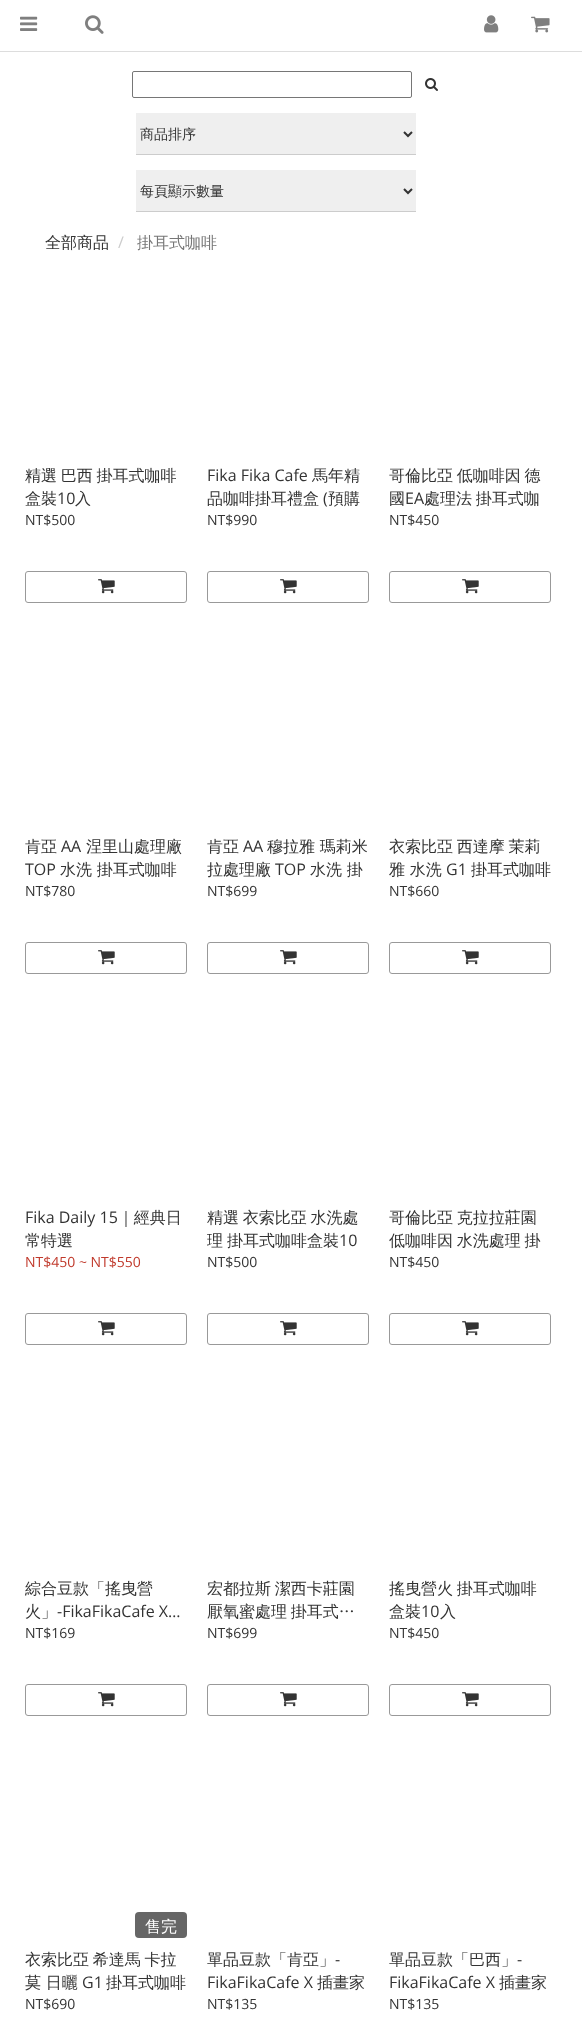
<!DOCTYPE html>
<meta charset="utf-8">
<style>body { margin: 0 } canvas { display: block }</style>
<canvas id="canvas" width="582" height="2044"></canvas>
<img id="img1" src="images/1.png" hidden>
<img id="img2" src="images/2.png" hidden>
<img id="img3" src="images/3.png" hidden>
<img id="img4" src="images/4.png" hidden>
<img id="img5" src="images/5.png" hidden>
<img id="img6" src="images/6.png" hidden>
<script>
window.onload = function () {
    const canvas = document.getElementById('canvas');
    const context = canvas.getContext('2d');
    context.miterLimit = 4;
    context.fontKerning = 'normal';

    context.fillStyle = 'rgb(255, 255, 255)';
    context.fillRect(0, 0, 582, 2044);
    context.fillStyle = 'rgb(221, 221, 221)';
    context.fillRect(0, 51, 582, 1);
    context.drawImage(document.getElementById('img1'), 20, 16, 18, 15);
    context.drawImage(document.getElementById('img2'), 85, 15, 19, 19);
    context.drawImage(document.getElementById('img3'), 484, 15, 15, 18);
    context.drawImage(document.getElementById('img4'), 531, 16, 19, 17);
    context.beginPath();
    context.roundRect(132.5, 71.5, 279, 26, 1.5);
    context.strokeStyle = 'rgb(118, 118, 118)';
    context.stroke();
    context.drawImage(document.getElementById('img5'), 425, 78, 13, 13);
    context.fillStyle = 'rgb(239, 239, 239)';
    context.fillRect(136, 113, 280, 41);
    context.fillStyle = 'rgb(204, 204, 204)';
    context.fillRect(136, 154, 280, 1);
    context.beginPath();
    context.moveTo(404, 132);
    context.lineTo(408, 136);
    context.lineTo(412, 132);
    context.strokeStyle = 'rgb(51, 51, 51)';
    context.lineWidth = 2;
    context.stroke();
    context.fillStyle = 'rgb(239, 239, 239)';
    context.fillRect(136, 170, 280, 41);
    context.fillStyle = 'rgb(204, 204, 204)';
    context.fillRect(136, 211, 280, 1);
    context.beginPath();
    context.moveTo(404, 189);
    context.lineTo(408, 193);
    context.lineTo(412, 189);
    context.stroke();
    context.beginPath();
    context.roundRect(25.5, 571.5, 161, 31, 2.5);
    context.strokeStyle = 'rgb(153, 153, 153)';
    context.lineWidth = 1;
    context.stroke();
    context.drawImage(document.getElementById('img6'), 98, 579, 17, 15);
    context.beginPath();
    context.roundRect(207.5, 571.5, 161, 31, 2.5);
    context.stroke();
    context.drawImage(document.getElementById('img6'), 280, 579, 17, 15);
    context.beginPath();
    context.roundRect(389.5, 571.5, 161, 31, 2.5);
    context.stroke();
    context.drawImage(document.getElementById('img6'), 462, 579, 17, 15);
    context.beginPath();
    context.roundRect(25.5, 942.5, 161, 31, 2.5);
    context.stroke();
    context.drawImage(document.getElementById('img6'), 98, 950, 17, 15);
    context.beginPath();
    context.roundRect(207.5, 942.5, 161, 31, 2.5);
    context.stroke();
    context.drawImage(document.getElementById('img6'), 280, 950, 17, 15);
    context.beginPath();
    context.roundRect(389.5, 942.5, 161, 31, 2.5);
    context.stroke();
    context.drawImage(document.getElementById('img6'), 462, 950, 17, 15);
    context.beginPath();
    context.roundRect(25.5, 1313.5, 161, 31, 2.5);
    context.stroke();
    context.drawImage(document.getElementById('img6'), 98, 1321, 17, 15);
    context.beginPath();
    context.roundRect(207.5, 1313.5, 161, 31, 2.5);
    context.stroke();
    context.drawImage(document.getElementById('img6'), 280, 1321, 17, 15);
    context.beginPath();
    context.roundRect(389.5, 1313.5, 161, 31, 2.5);
    context.stroke();
    context.drawImage(document.getElementById('img6'), 462, 1321, 17, 15);
    context.beginPath();
    context.roundRect(25.5, 1684.5, 161, 31, 2.5);
    context.stroke();
    context.drawImage(document.getElementById('img6'), 98, 1692, 17, 15);
    context.beginPath();
    context.roundRect(207.5, 1684.5, 161, 31, 2.5);
    context.stroke();
    context.drawImage(document.getElementById('img6'), 280, 1692, 17, 15);
    context.beginPath();
    context.roundRect(389.5, 1684.5, 161, 31, 2.5);
    context.stroke();
    context.drawImage(document.getElementById('img6'), 462, 1692, 17, 15);
    context.fillStyle = 'rgb(102, 102, 102)';
    context.beginPath();
    context.roundRect(135, 1912, 52, 26, 4);
    context.fill();
    context.font = '500 14px WenQuanYi Zen Hei';
    context.fillStyle = 'rgb(51, 51, 51)';
    context.fillText('商品排序', 140, 139);
    context.fillText('每頁顯示數量', 140, 196);
    context.font = '500 16px WenQuanYi Zen Hei';
    context.fillText('全部商品', 45, 248);
    context.font = '16px Open Sans';
    context.fillStyle = 'rgb(204, 204, 204)';
    context.fillText('/', 118, 248);
    context.font = '500 16px WenQuanYi Zen Hei';
    context.fillStyle = 'rgb(119, 119, 119)';
    context.fillText('掛耳式咖啡', 137, 248);
    context.wordSpacing = '-1px';
    context.fillStyle = 'rgb(51, 51, 51)';
    context.fillText('精選 巴西 掛耳式咖啡', 25, 481);
    context.wordSpacing = '0px';
    context.fillText('盒裝', 25, 504);
    context.font = '16px Open Sans';
    context.fillText('10', 57, 504);
    context.font = '500 16px WenQuanYi Zen Hei';
    context.fillText('入', 75, 504);
    context.font = '14px Open Sans';
    context.fillText('NT$500', 25, 525);
    context.font = '16px Open Sans';
    context.fillText('Fika Fika Cafe', 207, 481);
    context.font = '500 16px WenQuanYi Zen Hei';
    context.fillText('馬年精', 312, 481);
    context.fillText('品咖啡掛耳禮盒', 207, 504);
    context.font = '16px Open Sans';
    context.fillText('(', 323, 504);
    context.font = '500 16px WenQuanYi Zen Hei';
    context.fillText('預購', 328, 504);
    context.font = '14px Open Sans';
    context.fillText('NT$990', 207, 525);
    context.wordSpacing = '-1px';
    context.font = '500 16px WenQuanYi Zen Hei';
    context.fillText('哥倫比亞 低咖啡因 德', 389, 481);
    context.wordSpacing = '0px';
    context.fillText('國', 389, 504);
    context.font = '16px Open Sans';
    context.fillText('EA', 405, 504);
    context.wordSpacing = '-1px';
    context.font = '500 16px WenQuanYi Zen Hei';
    context.fillText('處理法 掛耳式咖', 424, 504);
    context.wordSpacing = '0px';
    context.font = '14px Open Sans';
    context.fillText('NT$450', 389, 525);
    context.font = '500 16px WenQuanYi Zen Hei';
    context.fillText('肯亞', 25, 852);
    context.font = '16px Open Sans';
    context.fillText('AA', 61, 852);
    context.font = '500 16px WenQuanYi Zen Hei';
    context.fillText('涅里山處理廠', 86, 852);
    context.font = '16px Open Sans';
    context.fillText('TOP', 25, 875);
    context.font = '500 16px WenQuanYi Zen Hei';
    context.fillText('水洗 掛耳式咖啡', 60, 875);
    context.font = '14px Open Sans';
    context.fillText('NT$780', 25, 896);
    context.font = '500 16px WenQuanYi Zen Hei';
    context.fillText('肯亞', 207, 852);
    context.font = '16px Open Sans';
    context.fillText('AA', 243, 852);
    context.font = '500 16px WenQuanYi Zen Hei';
    context.fillText('穆拉雅 瑪莉米', 267, 852);
    context.fillText('拉處理廠', 207, 875);
    context.font = '16px Open Sans';
    context.fillText('TOP', 275, 875);
    context.font = '500 16px WenQuanYi Zen Hei';
    context.fillText('水洗 掛', 310, 875);
    context.font = '14px Open Sans';
    context.fillText('NT$699', 207, 896);
    context.wordSpacing = '-1px';
    context.font = '500 16px WenQuanYi Zen Hei';
    context.fillText('衣索比亞 西達摩 茉莉', 389, 852);
    context.wordSpacing = '0px';
    context.fillText('雅 水洗', 389, 875);
    context.font = '16px Open Sans';
    context.fillText('G1', 446, 875);
    context.font = '500 16px WenQuanYi Zen Hei';
    context.fillText('掛耳式咖啡', 471, 875);
    context.font = '14px Open Sans';
    context.fillText('NT$660', 389, 896);
    context.font = '16px Open Sans';
    context.fillText('Fika Daily 15', 25, 1223);
    context.font = '500 16px WenQuanYi Zen Hei';
    context.fillText('｜經典日', 118, 1223);
    context.fillText('常特選', 25, 1246);
    context.font = '14px Open Sans';
    context.fillStyle = 'rgb(192, 57, 43)';
    context.fillText('NT$450 ~ NT$550', 25, 1267);
    context.wordSpacing = '-1px';
    context.font = '500 16px WenQuanYi Zen Hei';
    context.fillStyle = 'rgb(51, 51, 51)';
    context.fillText('精選 衣索比亞 水洗處', 207, 1223);
    context.wordSpacing = '0px';
    context.fillText('理', 207, 1246);
    context.fillText('掛耳式咖啡盒裝', 227, 1246);
    context.font = '16px Open Sans';
    context.fillText('10', 339, 1246);
    context.font = '14px Open Sans';
    context.fillText('NT$500', 207, 1267);
    context.wordSpacing = '-1px';
    context.font = '500 16px WenQuanYi Zen Hei';
    context.fillText('哥倫比亞 克拉拉莊園', 389, 1223);
    context.fillText('低咖啡因 水洗處理 掛', 389, 1246);
    context.wordSpacing = '0px';
    context.font = '14px Open Sans';
    context.fillText('NT$450', 389, 1267);
    context.font = '500 16px WenQuanYi Zen Hei';
    context.fillText('綜合豆款「搖曳營', 25, 1594);
    context.fillText('火」', 25, 1617);
    context.font = '16px Open Sans';
    context.fillText('-FikaFikaCafe X…', 57, 1617);
    context.font = '14px Open Sans';
    context.fillText('NT$169', 25, 1638);
    context.wordSpacing = '-1px';
    context.font = '500 16px WenQuanYi Zen Hei';
    context.fillText('宏都拉斯 潔西卡莊園', 207, 1594);
    context.fillText('厭氧蜜處理 掛耳式…', 207, 1617);
    context.wordSpacing = '0px';
    context.font = '14px Open Sans';
    context.fillText('NT$699', 207, 1638);
    context.wordSpacing = '-1px';
    context.font = '500 16px WenQuanYi Zen Hei';
    context.fillText('搖曳營火 掛耳式咖啡', 389, 1594);
    context.wordSpacing = '0px';
    context.fillText('盒裝', 389, 1617);
    context.font = '16px Open Sans';
    context.fillText('10', 421, 1617);
    context.font = '500 16px WenQuanYi Zen Hei';
    context.fillText('入', 440, 1617);
    context.font = '14px Open Sans';
    context.fillText('NT$450', 389, 1638);
    context.font = '500 16px WenQuanYi Zen Hei';
    context.fillStyle = 'rgb(255, 255, 255)';
    context.fillText('售完', 145, 1932);
    context.wordSpacing = '-1px';
    context.fillStyle = 'rgb(51, 51, 51)';
    context.fillText('衣索比亞 希達馬 卡拉', 25, 1965);
    context.wordSpacing = '0px';
    context.fillText('莫 日曬', 25, 1988);
    context.font = '16px Open Sans';
    context.fillText('G1', 82, 1988);
    context.font = '500 16px WenQuanYi Zen Hei';
    context.fillText('掛耳式咖啡', 106, 1988);
    context.font = '14px Open Sans';
    context.fillText('NT$690', 25, 2009);
    context.font = '500 16px WenQuanYi Zen Hei';
    context.fillText('單品豆款「肯亞」', 207, 1965);
    context.font = '16px Open Sans';
    context.fillText('-', 335, 1965);
    context.fillText('FikaFikaCafe X', 207, 1988);
    context.font = '500 16px WenQuanYi Zen Hei';
    context.fillText('插畫家', 317, 1988);
    context.font = '14px Open Sans';
    context.fillText('NT$135', 207, 2009);
    context.font = '500 16px WenQuanYi Zen Hei';
    context.fillText('單品豆款「巴西」', 389, 1965);
    context.font = '16px Open Sans';
    context.fillText('-', 517, 1965);
    context.fillText('FikaFikaCafe X', 389, 1988);
    context.font = '500 16px WenQuanYi Zen Hei';
    context.fillText('插畫家', 499, 1988);
    context.font = '14px Open Sans';
    context.fillText('NT$135', 389, 2009);
};
</script>
